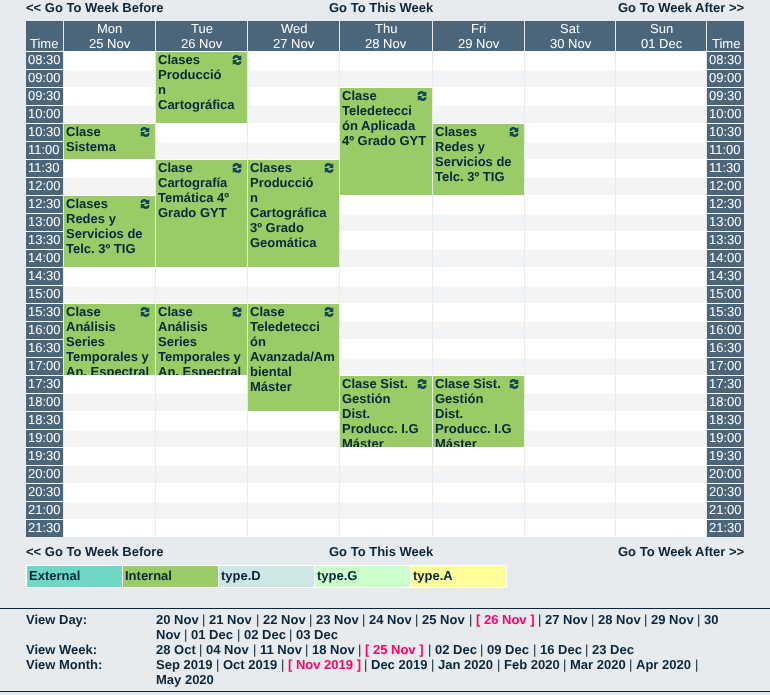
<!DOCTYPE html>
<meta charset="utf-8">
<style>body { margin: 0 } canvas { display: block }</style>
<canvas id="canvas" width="770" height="695"></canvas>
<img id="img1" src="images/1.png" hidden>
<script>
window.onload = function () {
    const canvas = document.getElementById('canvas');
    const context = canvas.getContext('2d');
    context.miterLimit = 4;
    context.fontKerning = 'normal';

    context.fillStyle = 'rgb(231, 235, 238)';
    context.fillRect(0, 0, 770, 695);
    context.fillStyle = 'rgb(75, 102, 123)';
    context.fillRect(26, 21, 37, 30);
    context.fillRect(64, 21, 91, 30);
    context.fillRect(156, 21, 91, 30);
    context.fillRect(248, 21, 91, 30);
    context.fillRect(340, 21, 92, 30);
    context.fillRect(433, 21, 91, 30);
    context.fillRect(525, 21, 90, 30);
    context.fillRect(616, 21, 90, 30);
    context.fillRect(707, 21, 37, 30);
    context.fillRect(26, 52, 37, 17);
    context.fillStyle = 'rgb(255, 255, 255)';
    context.fillRect(26, 51, 37, 1);
    context.fillRect(64, 51, 91, 18);
    context.fillStyle = 'rgb(153, 204, 102)';
    context.fillRect(156, 52, 91, 71);
    context.fillStyle = 'rgb(255, 255, 255)';
    context.fillRect(155, 51, 92, 1);
    context.fillStyle = 'rgb(231, 235, 238)';
    context.fillRect(155, 51, 1, 1);
    context.drawImage(document.getElementById('img1'), 232, 55, 10, 10);
    context.fillStyle = 'rgb(255, 255, 255)';
    context.fillRect(248, 51, 91, 18);
    context.fillRect(340, 51, 92, 18);
    context.fillRect(433, 51, 91, 18);
    context.fillRect(525, 51, 90, 18);
    context.fillRect(616, 51, 90, 18);
    context.fillStyle = 'rgb(75, 102, 123)';
    context.fillRect(707, 52, 37, 17);
    context.fillStyle = 'rgb(255, 255, 255)';
    context.fillRect(706, 51, 38, 1);
    context.fillStyle = 'rgb(231, 235, 238)';
    context.fillRect(706, 51, 1, 1);
    context.fillStyle = 'rgb(242, 244, 246)';
    context.fillRect(64, 70, 91, 17);
    context.fillStyle = 'rgb(255, 255, 255)';
    context.fillRect(26, 69, 129, 1);
    context.fillStyle = 'rgb(231, 235, 238)';
    context.fillRect(63, 69, 1, 1);
    context.fillStyle = 'rgb(242, 244, 246)';
    context.fillRect(248, 70, 91, 17);
    context.fillStyle = 'rgb(255, 255, 255)';
    context.fillRect(247, 69, 497, 1);
    context.fillStyle = 'rgb(231, 235, 238)';
    context.fillRect(247, 69, 1, 1);
    context.fillStyle = 'rgb(75, 102, 123)';
    context.fillRect(26, 70, 37, 17);
    context.fillStyle = 'rgb(242, 244, 246)';
    context.fillRect(340, 70, 92, 17);
    context.fillStyle = 'rgb(231, 235, 238)';
    context.fillRect(339, 69, 1, 1);
    context.fillStyle = 'rgb(242, 244, 246)';
    context.fillRect(433, 70, 91, 17);
    context.fillStyle = 'rgb(231, 235, 238)';
    context.fillRect(432, 69, 1, 1);
    context.fillStyle = 'rgb(242, 244, 246)';
    context.fillRect(525, 70, 90, 17);
    context.fillStyle = 'rgb(231, 235, 238)';
    context.fillRect(524, 69, 1, 1);
    context.fillStyle = 'rgb(242, 244, 246)';
    context.fillRect(616, 70, 90, 17);
    context.fillStyle = 'rgb(231, 235, 238)';
    context.fillRect(615, 69, 1, 1);
    context.fillStyle = 'rgb(75, 102, 123)';
    context.fillRect(707, 70, 37, 17);
    context.fillStyle = 'rgb(231, 235, 238)';
    context.fillRect(706, 69, 1, 1);
    context.fillStyle = 'rgb(75, 102, 123)';
    context.fillRect(26, 88, 37, 17);
    context.fillStyle = 'rgb(255, 255, 255)';
    context.fillRect(26, 87, 37, 1);
    context.fillRect(64, 87, 91, 18);
    context.fillRect(248, 87, 91, 18);
    context.fillStyle = 'rgb(153, 204, 102)';
    context.fillRect(340, 88, 92, 107);
    context.fillStyle = 'rgb(255, 255, 255)';
    context.fillRect(339, 87, 93, 1);
    context.fillStyle = 'rgb(231, 235, 238)';
    context.fillRect(339, 87, 1, 1);
    context.drawImage(document.getElementById('img1'), 417, 91, 10, 10);
    context.fillStyle = 'rgb(255, 255, 255)';
    context.fillRect(433, 87, 91, 18);
    context.fillRect(525, 87, 90, 18);
    context.fillRect(616, 87, 90, 18);
    context.fillStyle = 'rgb(75, 102, 123)';
    context.fillRect(707, 88, 37, 17);
    context.fillStyle = 'rgb(255, 255, 255)';
    context.fillRect(706, 87, 38, 1);
    context.fillStyle = 'rgb(231, 235, 238)';
    context.fillRect(706, 87, 1, 1);
    context.fillStyle = 'rgb(242, 244, 246)';
    context.fillRect(64, 106, 91, 17);
    context.fillStyle = 'rgb(255, 255, 255)';
    context.fillRect(26, 105, 129, 1);
    context.fillStyle = 'rgb(231, 235, 238)';
    context.fillRect(63, 105, 1, 1);
    context.fillStyle = 'rgb(242, 244, 246)';
    context.fillRect(248, 106, 91, 17);
    context.fillStyle = 'rgb(255, 255, 255)';
    context.fillRect(247, 105, 92, 1);
    context.fillStyle = 'rgb(231, 235, 238)';
    context.fillRect(247, 105, 1, 1);
    context.fillStyle = 'rgb(242, 244, 246)';
    context.fillRect(433, 106, 91, 17);
    context.fillStyle = 'rgb(255, 255, 255)';
    context.fillRect(432, 105, 312, 1);
    context.fillStyle = 'rgb(231, 235, 238)';
    context.fillRect(432, 105, 1, 1);
    context.fillStyle = 'rgb(75, 102, 123)';
    context.fillRect(26, 106, 37, 17);
    context.fillStyle = 'rgb(242, 244, 246)';
    context.fillRect(525, 106, 90, 17);
    context.fillStyle = 'rgb(231, 235, 238)';
    context.fillRect(524, 105, 1, 1);
    context.fillStyle = 'rgb(242, 244, 246)';
    context.fillRect(616, 106, 90, 17);
    context.fillStyle = 'rgb(231, 235, 238)';
    context.fillRect(615, 105, 1, 1);
    context.fillStyle = 'rgb(75, 102, 123)';
    context.fillRect(707, 106, 37, 17);
    context.fillStyle = 'rgb(231, 235, 238)';
    context.fillRect(706, 105, 1, 1);
    context.fillStyle = 'rgb(75, 102, 123)';
    context.fillRect(26, 124, 37, 17);
    context.fillStyle = 'rgb(255, 255, 255)';
    context.fillRect(26, 123, 129, 1);
    context.fillStyle = 'rgb(153, 204, 102)';
    context.fillRect(64, 124, 91, 35);
    context.fillStyle = 'rgb(231, 235, 238)';
    context.fillRect(63, 123, 1, 1);
    context.drawImage(document.getElementById('img1'), 140, 127, 10, 10);
    context.fillStyle = 'rgb(255, 255, 255)';
    context.fillRect(156, 123, 91, 18);
    context.fillRect(248, 123, 91, 18);
    context.fillStyle = 'rgb(153, 204, 102)';
    context.fillRect(433, 124, 91, 71);
    context.fillStyle = 'rgb(255, 255, 255)';
    context.fillRect(432, 123, 92, 1);
    context.fillStyle = 'rgb(231, 235, 238)';
    context.fillRect(432, 123, 1, 1);
    context.drawImage(document.getElementById('img1'), 509, 127, 10, 10);
    context.fillStyle = 'rgb(255, 255, 255)';
    context.fillRect(525, 123, 90, 18);
    context.fillRect(616, 123, 90, 18);
    context.fillStyle = 'rgb(75, 102, 123)';
    context.fillRect(707, 124, 37, 17);
    context.fillStyle = 'rgb(255, 255, 255)';
    context.fillRect(706, 123, 38, 1);
    context.fillStyle = 'rgb(231, 235, 238)';
    context.fillRect(706, 123, 1, 1);
    context.fillStyle = 'rgb(242, 244, 246)';
    context.fillRect(156, 142, 91, 17);
    context.fillStyle = 'rgb(255, 255, 255)';
    context.fillRect(155, 141, 184, 1);
    context.fillStyle = 'rgb(231, 235, 238)';
    context.fillRect(155, 141, 1, 1);
    context.fillStyle = 'rgb(242, 244, 246)';
    context.fillRect(248, 142, 91, 17);
    context.fillStyle = 'rgb(231, 235, 238)';
    context.fillRect(247, 141, 1, 1);
    context.fillStyle = 'rgb(242, 244, 246)';
    context.fillRect(525, 142, 90, 17);
    context.fillStyle = 'rgb(255, 255, 255)';
    context.fillRect(524, 141, 220, 1);
    context.fillStyle = 'rgb(231, 235, 238)';
    context.fillRect(524, 141, 1, 1);
    context.fillStyle = 'rgb(75, 102, 123)';
    context.fillRect(26, 142, 37, 17);
    context.fillStyle = 'rgb(255, 255, 255)';
    context.fillRect(26, 141, 37, 1);
    context.fillStyle = 'rgb(242, 244, 246)';
    context.fillRect(616, 142, 90, 17);
    context.fillStyle = 'rgb(231, 235, 238)';
    context.fillRect(615, 141, 1, 1);
    context.fillStyle = 'rgb(75, 102, 123)';
    context.fillRect(707, 142, 37, 17);
    context.fillStyle = 'rgb(231, 235, 238)';
    context.fillRect(706, 141, 1, 1);
    context.fillStyle = 'rgb(75, 102, 123)';
    context.fillRect(26, 160, 37, 17);
    context.fillStyle = 'rgb(255, 255, 255)';
    context.fillRect(26, 159, 37, 1);
    context.fillRect(64, 159, 91, 18);
    context.fillStyle = 'rgb(153, 204, 102)';
    context.fillRect(156, 160, 91, 107);
    context.fillStyle = 'rgb(255, 255, 255)';
    context.fillRect(155, 159, 184, 1);
    context.fillStyle = 'rgb(231, 235, 238)';
    context.fillRect(155, 159, 1, 1);
    context.drawImage(document.getElementById('img1'), 232, 163, 10, 10);
    context.fillStyle = 'rgb(153, 204, 102)';
    context.fillRect(248, 160, 91, 107);
    context.fillStyle = 'rgb(231, 235, 238)';
    context.fillRect(247, 159, 1, 1);
    context.drawImage(document.getElementById('img1'), 324, 163, 10, 10);
    context.fillStyle = 'rgb(255, 255, 255)';
    context.fillRect(525, 159, 90, 18);
    context.fillRect(616, 159, 90, 18);
    context.fillStyle = 'rgb(75, 102, 123)';
    context.fillRect(707, 160, 37, 17);
    context.fillStyle = 'rgb(255, 255, 255)';
    context.fillRect(706, 159, 38, 1);
    context.fillStyle = 'rgb(231, 235, 238)';
    context.fillRect(706, 159, 1, 1);
    context.fillStyle = 'rgb(242, 244, 246)';
    context.fillRect(64, 178, 91, 17);
    context.fillStyle = 'rgb(255, 255, 255)';
    context.fillRect(26, 177, 129, 1);
    context.fillStyle = 'rgb(231, 235, 238)';
    context.fillRect(63, 177, 1, 1);
    context.fillStyle = 'rgb(242, 244, 246)';
    context.fillRect(525, 178, 90, 17);
    context.fillStyle = 'rgb(255, 255, 255)';
    context.fillRect(524, 177, 220, 1);
    context.fillStyle = 'rgb(231, 235, 238)';
    context.fillRect(524, 177, 1, 1);
    context.fillStyle = 'rgb(75, 102, 123)';
    context.fillRect(26, 178, 37, 17);
    context.fillStyle = 'rgb(242, 244, 246)';
    context.fillRect(616, 178, 90, 17);
    context.fillStyle = 'rgb(231, 235, 238)';
    context.fillRect(615, 177, 1, 1);
    context.fillStyle = 'rgb(75, 102, 123)';
    context.fillRect(707, 178, 37, 17);
    context.fillStyle = 'rgb(231, 235, 238)';
    context.fillRect(706, 177, 1, 1);
    context.fillStyle = 'rgb(75, 102, 123)';
    context.fillRect(26, 196, 37, 17);
    context.fillStyle = 'rgb(255, 255, 255)';
    context.fillRect(26, 195, 129, 1);
    context.fillStyle = 'rgb(153, 204, 102)';
    context.fillRect(64, 196, 91, 71);
    context.fillStyle = 'rgb(231, 235, 238)';
    context.fillRect(63, 195, 1, 1);
    context.drawImage(document.getElementById('img1'), 140, 199, 10, 10);
    context.fillStyle = 'rgb(255, 255, 255)';
    context.fillRect(340, 195, 92, 18);
    context.fillRect(433, 195, 91, 18);
    context.fillRect(525, 195, 90, 18);
    context.fillRect(616, 195, 90, 18);
    context.fillStyle = 'rgb(75, 102, 123)';
    context.fillRect(707, 196, 37, 17);
    context.fillStyle = 'rgb(255, 255, 255)';
    context.fillRect(706, 195, 38, 1);
    context.fillStyle = 'rgb(231, 235, 238)';
    context.fillRect(706, 195, 1, 1);
    context.fillStyle = 'rgb(242, 244, 246)';
    context.fillRect(340, 214, 92, 17);
    context.fillStyle = 'rgb(255, 255, 255)';
    context.fillRect(339, 213, 405, 1);
    context.fillStyle = 'rgb(231, 235, 238)';
    context.fillRect(339, 213, 1, 1);
    context.fillStyle = 'rgb(75, 102, 123)';
    context.fillRect(26, 214, 37, 17);
    context.fillStyle = 'rgb(255, 255, 255)';
    context.fillRect(26, 213, 37, 1);
    context.fillStyle = 'rgb(242, 244, 246)';
    context.fillRect(433, 214, 91, 17);
    context.fillStyle = 'rgb(231, 235, 238)';
    context.fillRect(432, 213, 1, 1);
    context.fillStyle = 'rgb(242, 244, 246)';
    context.fillRect(525, 214, 90, 17);
    context.fillStyle = 'rgb(231, 235, 238)';
    context.fillRect(524, 213, 1, 1);
    context.fillStyle = 'rgb(242, 244, 246)';
    context.fillRect(616, 214, 90, 17);
    context.fillStyle = 'rgb(231, 235, 238)';
    context.fillRect(615, 213, 1, 1);
    context.fillStyle = 'rgb(75, 102, 123)';
    context.fillRect(707, 214, 37, 17);
    context.fillStyle = 'rgb(231, 235, 238)';
    context.fillRect(706, 213, 1, 1);
    context.fillStyle = 'rgb(75, 102, 123)';
    context.fillRect(26, 232, 37, 17);
    context.fillStyle = 'rgb(255, 255, 255)';
    context.fillRect(26, 231, 37, 1);
    context.fillRect(340, 231, 92, 18);
    context.fillRect(433, 231, 91, 18);
    context.fillRect(525, 231, 90, 18);
    context.fillRect(616, 231, 90, 18);
    context.fillStyle = 'rgb(75, 102, 123)';
    context.fillRect(707, 232, 37, 17);
    context.fillStyle = 'rgb(255, 255, 255)';
    context.fillRect(706, 231, 38, 1);
    context.fillStyle = 'rgb(231, 235, 238)';
    context.fillRect(706, 231, 1, 1);
    context.fillStyle = 'rgb(242, 244, 246)';
    context.fillRect(340, 250, 92, 17);
    context.fillStyle = 'rgb(255, 255, 255)';
    context.fillRect(339, 249, 405, 1);
    context.fillStyle = 'rgb(231, 235, 238)';
    context.fillRect(339, 249, 1, 1);
    context.fillStyle = 'rgb(75, 102, 123)';
    context.fillRect(26, 250, 37, 17);
    context.fillStyle = 'rgb(255, 255, 255)';
    context.fillRect(26, 249, 37, 1);
    context.fillStyle = 'rgb(242, 244, 246)';
    context.fillRect(433, 250, 91, 17);
    context.fillStyle = 'rgb(231, 235, 238)';
    context.fillRect(432, 249, 1, 1);
    context.fillStyle = 'rgb(242, 244, 246)';
    context.fillRect(525, 250, 90, 17);
    context.fillStyle = 'rgb(231, 235, 238)';
    context.fillRect(524, 249, 1, 1);
    context.fillStyle = 'rgb(242, 244, 246)';
    context.fillRect(616, 250, 90, 17);
    context.fillStyle = 'rgb(231, 235, 238)';
    context.fillRect(615, 249, 1, 1);
    context.fillStyle = 'rgb(75, 102, 123)';
    context.fillRect(707, 250, 37, 17);
    context.fillStyle = 'rgb(231, 235, 238)';
    context.fillRect(706, 249, 1, 1);
    context.fillStyle = 'rgb(75, 102, 123)';
    context.fillRect(26, 268, 37, 17);
    context.fillStyle = 'rgb(255, 255, 255)';
    context.fillRect(26, 267, 37, 1);
    context.fillRect(64, 267, 91, 18);
    context.fillRect(156, 267, 91, 18);
    context.fillRect(248, 267, 91, 18);
    context.fillRect(340, 267, 92, 18);
    context.fillRect(433, 267, 91, 18);
    context.fillRect(525, 267, 90, 18);
    context.fillRect(616, 267, 90, 18);
    context.fillStyle = 'rgb(75, 102, 123)';
    context.fillRect(707, 268, 37, 17);
    context.fillStyle = 'rgb(255, 255, 255)';
    context.fillRect(706, 267, 38, 1);
    context.fillStyle = 'rgb(231, 235, 238)';
    context.fillRect(706, 267, 1, 1);
    context.fillStyle = 'rgb(75, 102, 123)';
    context.fillRect(26, 286, 37, 17);
    context.fillStyle = 'rgb(255, 255, 255)';
    context.fillRect(26, 285, 718, 1);
    context.fillStyle = 'rgb(242, 244, 246)';
    context.fillRect(64, 286, 91, 17);
    context.fillStyle = 'rgb(231, 235, 238)';
    context.fillRect(63, 285, 1, 1);
    context.fillStyle = 'rgb(242, 244, 246)';
    context.fillRect(156, 286, 91, 17);
    context.fillStyle = 'rgb(231, 235, 238)';
    context.fillRect(155, 285, 1, 1);
    context.fillStyle = 'rgb(242, 244, 246)';
    context.fillRect(248, 286, 91, 17);
    context.fillStyle = 'rgb(231, 235, 238)';
    context.fillRect(247, 285, 1, 1);
    context.fillStyle = 'rgb(242, 244, 246)';
    context.fillRect(340, 286, 92, 17);
    context.fillStyle = 'rgb(231, 235, 238)';
    context.fillRect(339, 285, 1, 1);
    context.fillStyle = 'rgb(242, 244, 246)';
    context.fillRect(433, 286, 91, 17);
    context.fillStyle = 'rgb(231, 235, 238)';
    context.fillRect(432, 285, 1, 1);
    context.fillStyle = 'rgb(242, 244, 246)';
    context.fillRect(525, 286, 90, 17);
    context.fillStyle = 'rgb(231, 235, 238)';
    context.fillRect(524, 285, 1, 1);
    context.fillStyle = 'rgb(242, 244, 246)';
    context.fillRect(616, 286, 90, 17);
    context.fillStyle = 'rgb(231, 235, 238)';
    context.fillRect(615, 285, 1, 1);
    context.fillStyle = 'rgb(75, 102, 123)';
    context.fillRect(707, 286, 37, 17);
    context.fillStyle = 'rgb(231, 235, 238)';
    context.fillRect(706, 285, 1, 1);
    context.fillStyle = 'rgb(75, 102, 123)';
    context.fillRect(26, 304, 37, 17);
    context.fillStyle = 'rgb(255, 255, 255)';
    context.fillRect(26, 303, 313, 1);
    context.fillStyle = 'rgb(153, 204, 102)';
    context.fillRect(64, 304, 91, 71);
    context.fillStyle = 'rgb(231, 235, 238)';
    context.fillRect(63, 303, 1, 1);
    context.drawImage(document.getElementById('img1'), 140, 307, 10, 10);
    context.fillStyle = 'rgb(153, 204, 102)';
    context.fillRect(156, 304, 91, 71);
    context.fillStyle = 'rgb(231, 235, 238)';
    context.fillRect(155, 303, 1, 1);
    context.drawImage(document.getElementById('img1'), 232, 307, 10, 10);
    context.fillStyle = 'rgb(153, 204, 102)';
    context.fillRect(248, 304, 91, 107);
    context.fillStyle = 'rgb(231, 235, 238)';
    context.fillRect(247, 303, 1, 1);
    context.drawImage(document.getElementById('img1'), 324, 307, 10, 10);
    context.fillStyle = 'rgb(255, 255, 255)';
    context.fillRect(340, 303, 92, 18);
    context.fillRect(433, 303, 91, 18);
    context.fillRect(525, 303, 90, 18);
    context.fillRect(616, 303, 90, 18);
    context.fillStyle = 'rgb(75, 102, 123)';
    context.fillRect(707, 304, 37, 17);
    context.fillStyle = 'rgb(255, 255, 255)';
    context.fillRect(706, 303, 38, 1);
    context.fillStyle = 'rgb(231, 235, 238)';
    context.fillRect(706, 303, 1, 1);
    context.fillStyle = 'rgb(242, 244, 246)';
    context.fillRect(340, 322, 92, 17);
    context.fillStyle = 'rgb(255, 255, 255)';
    context.fillRect(339, 321, 405, 1);
    context.fillStyle = 'rgb(231, 235, 238)';
    context.fillRect(339, 321, 1, 1);
    context.fillStyle = 'rgb(75, 102, 123)';
    context.fillRect(26, 322, 37, 17);
    context.fillStyle = 'rgb(255, 255, 255)';
    context.fillRect(26, 321, 37, 1);
    context.fillStyle = 'rgb(242, 244, 246)';
    context.fillRect(433, 322, 91, 17);
    context.fillStyle = 'rgb(231, 235, 238)';
    context.fillRect(432, 321, 1, 1);
    context.fillStyle = 'rgb(242, 244, 246)';
    context.fillRect(525, 322, 90, 17);
    context.fillStyle = 'rgb(231, 235, 238)';
    context.fillRect(524, 321, 1, 1);
    context.fillStyle = 'rgb(242, 244, 246)';
    context.fillRect(616, 322, 90, 17);
    context.fillStyle = 'rgb(231, 235, 238)';
    context.fillRect(615, 321, 1, 1);
    context.fillStyle = 'rgb(75, 102, 123)';
    context.fillRect(707, 322, 37, 17);
    context.fillStyle = 'rgb(231, 235, 238)';
    context.fillRect(706, 321, 1, 1);
    context.fillStyle = 'rgb(75, 102, 123)';
    context.fillRect(26, 340, 37, 17);
    context.fillStyle = 'rgb(255, 255, 255)';
    context.fillRect(26, 339, 37, 1);
    context.fillRect(340, 339, 92, 18);
    context.fillRect(433, 339, 91, 18);
    context.fillRect(525, 339, 90, 18);
    context.fillRect(616, 339, 90, 18);
    context.fillStyle = 'rgb(75, 102, 123)';
    context.fillRect(707, 340, 37, 17);
    context.fillStyle = 'rgb(255, 255, 255)';
    context.fillRect(706, 339, 38, 1);
    context.fillStyle = 'rgb(231, 235, 238)';
    context.fillRect(706, 339, 1, 1);
    context.fillStyle = 'rgb(242, 244, 246)';
    context.fillRect(340, 358, 92, 17);
    context.fillStyle = 'rgb(255, 255, 255)';
    context.fillRect(339, 357, 405, 1);
    context.fillStyle = 'rgb(231, 235, 238)';
    context.fillRect(339, 357, 1, 1);
    context.fillStyle = 'rgb(75, 102, 123)';
    context.fillRect(26, 358, 37, 17);
    context.fillStyle = 'rgb(255, 255, 255)';
    context.fillRect(26, 357, 37, 1);
    context.fillStyle = 'rgb(242, 244, 246)';
    context.fillRect(433, 358, 91, 17);
    context.fillStyle = 'rgb(231, 235, 238)';
    context.fillRect(432, 357, 1, 1);
    context.fillStyle = 'rgb(242, 244, 246)';
    context.fillRect(525, 358, 90, 17);
    context.fillStyle = 'rgb(231, 235, 238)';
    context.fillRect(524, 357, 1, 1);
    context.fillStyle = 'rgb(242, 244, 246)';
    context.fillRect(616, 358, 90, 17);
    context.fillStyle = 'rgb(231, 235, 238)';
    context.fillRect(615, 357, 1, 1);
    context.fillStyle = 'rgb(75, 102, 123)';
    context.fillRect(707, 358, 37, 17);
    context.fillStyle = 'rgb(231, 235, 238)';
    context.fillRect(706, 357, 1, 1);
    context.fillStyle = 'rgb(75, 102, 123)';
    context.fillRect(26, 376, 37, 17);
    context.fillStyle = 'rgb(255, 255, 255)';
    context.fillRect(26, 375, 37, 1);
    context.fillRect(64, 375, 91, 18);
    context.fillRect(156, 375, 91, 18);
    context.fillStyle = 'rgb(153, 204, 102)';
    context.fillRect(340, 376, 92, 71);
    context.fillStyle = 'rgb(255, 255, 255)';
    context.fillRect(339, 375, 185, 1);
    context.fillStyle = 'rgb(231, 235, 238)';
    context.fillRect(339, 375, 1, 1);
    context.drawImage(document.getElementById('img1'), 417, 379, 10, 10);
    context.fillStyle = 'rgb(153, 204, 102)';
    context.fillRect(433, 376, 91, 71);
    context.fillStyle = 'rgb(231, 235, 238)';
    context.fillRect(432, 375, 1, 1);
    context.drawImage(document.getElementById('img1'), 509, 379, 10, 10);
    context.fillStyle = 'rgb(255, 255, 255)';
    context.fillRect(525, 375, 90, 18);
    context.fillRect(616, 375, 90, 18);
    context.fillStyle = 'rgb(75, 102, 123)';
    context.fillRect(707, 376, 37, 17);
    context.fillStyle = 'rgb(255, 255, 255)';
    context.fillRect(706, 375, 38, 1);
    context.fillStyle = 'rgb(231, 235, 238)';
    context.fillRect(706, 375, 1, 1);
    context.fillStyle = 'rgb(242, 244, 246)';
    context.fillRect(64, 394, 91, 17);
    context.fillStyle = 'rgb(255, 255, 255)';
    context.fillRect(26, 393, 221, 1);
    context.fillStyle = 'rgb(231, 235, 238)';
    context.fillRect(63, 393, 1, 1);
    context.fillStyle = 'rgb(242, 244, 246)';
    context.fillRect(156, 394, 91, 17);
    context.fillStyle = 'rgb(231, 235, 238)';
    context.fillRect(155, 393, 1, 1);
    context.fillStyle = 'rgb(242, 244, 246)';
    context.fillRect(525, 394, 90, 17);
    context.fillStyle = 'rgb(255, 255, 255)';
    context.fillRect(524, 393, 220, 1);
    context.fillStyle = 'rgb(231, 235, 238)';
    context.fillRect(524, 393, 1, 1);
    context.fillStyle = 'rgb(75, 102, 123)';
    context.fillRect(26, 394, 37, 17);
    context.fillStyle = 'rgb(242, 244, 246)';
    context.fillRect(616, 394, 90, 17);
    context.fillStyle = 'rgb(231, 235, 238)';
    context.fillRect(615, 393, 1, 1);
    context.fillStyle = 'rgb(75, 102, 123)';
    context.fillRect(707, 394, 37, 17);
    context.fillStyle = 'rgb(231, 235, 238)';
    context.fillRect(706, 393, 1, 1);
    context.fillStyle = 'rgb(75, 102, 123)';
    context.fillRect(26, 412, 37, 17);
    context.fillStyle = 'rgb(255, 255, 255)';
    context.fillRect(26, 411, 37, 1);
    context.fillRect(64, 411, 91, 18);
    context.fillRect(156, 411, 91, 18);
    context.fillRect(248, 411, 91, 18);
    context.fillRect(525, 411, 90, 18);
    context.fillRect(616, 411, 90, 18);
    context.fillStyle = 'rgb(75, 102, 123)';
    context.fillRect(707, 412, 37, 17);
    context.fillStyle = 'rgb(255, 255, 255)';
    context.fillRect(706, 411, 38, 1);
    context.fillStyle = 'rgb(231, 235, 238)';
    context.fillRect(706, 411, 1, 1);
    context.fillStyle = 'rgb(242, 244, 246)';
    context.fillRect(64, 430, 91, 17);
    context.fillStyle = 'rgb(255, 255, 255)';
    context.fillRect(26, 429, 313, 1);
    context.fillStyle = 'rgb(231, 235, 238)';
    context.fillRect(63, 429, 1, 1);
    context.fillStyle = 'rgb(242, 244, 246)';
    context.fillRect(156, 430, 91, 17);
    context.fillStyle = 'rgb(231, 235, 238)';
    context.fillRect(155, 429, 1, 1);
    context.fillStyle = 'rgb(242, 244, 246)';
    context.fillRect(248, 430, 91, 17);
    context.fillStyle = 'rgb(231, 235, 238)';
    context.fillRect(247, 429, 1, 1);
    context.fillStyle = 'rgb(242, 244, 246)';
    context.fillRect(525, 430, 90, 17);
    context.fillStyle = 'rgb(255, 255, 255)';
    context.fillRect(524, 429, 220, 1);
    context.fillStyle = 'rgb(231, 235, 238)';
    context.fillRect(524, 429, 1, 1);
    context.fillStyle = 'rgb(75, 102, 123)';
    context.fillRect(26, 430, 37, 17);
    context.fillStyle = 'rgb(242, 244, 246)';
    context.fillRect(616, 430, 90, 17);
    context.fillStyle = 'rgb(231, 235, 238)';
    context.fillRect(615, 429, 1, 1);
    context.fillStyle = 'rgb(75, 102, 123)';
    context.fillRect(707, 430, 37, 17);
    context.fillStyle = 'rgb(231, 235, 238)';
    context.fillRect(706, 429, 1, 1);
    context.fillStyle = 'rgb(75, 102, 123)';
    context.fillRect(26, 448, 37, 17);
    context.fillStyle = 'rgb(255, 255, 255)';
    context.fillRect(26, 447, 37, 1);
    context.fillRect(64, 447, 91, 18);
    context.fillRect(156, 447, 91, 18);
    context.fillRect(248, 447, 91, 18);
    context.fillRect(340, 447, 92, 18);
    context.fillRect(433, 447, 91, 18);
    context.fillRect(525, 447, 90, 18);
    context.fillRect(616, 447, 90, 18);
    context.fillStyle = 'rgb(75, 102, 123)';
    context.fillRect(707, 448, 37, 17);
    context.fillStyle = 'rgb(255, 255, 255)';
    context.fillRect(706, 447, 38, 1);
    context.fillStyle = 'rgb(231, 235, 238)';
    context.fillRect(706, 447, 1, 1);
    context.fillStyle = 'rgb(75, 102, 123)';
    context.fillRect(26, 466, 37, 17);
    context.fillStyle = 'rgb(255, 255, 255)';
    context.fillRect(26, 465, 718, 1);
    context.fillStyle = 'rgb(242, 244, 246)';
    context.fillRect(64, 466, 91, 17);
    context.fillStyle = 'rgb(231, 235, 238)';
    context.fillRect(63, 465, 1, 1);
    context.fillStyle = 'rgb(242, 244, 246)';
    context.fillRect(156, 466, 91, 17);
    context.fillStyle = 'rgb(231, 235, 238)';
    context.fillRect(155, 465, 1, 1);
    context.fillStyle = 'rgb(242, 244, 246)';
    context.fillRect(248, 466, 91, 17);
    context.fillStyle = 'rgb(231, 235, 238)';
    context.fillRect(247, 465, 1, 1);
    context.fillStyle = 'rgb(242, 244, 246)';
    context.fillRect(340, 466, 92, 17);
    context.fillStyle = 'rgb(231, 235, 238)';
    context.fillRect(339, 465, 1, 1);
    context.fillStyle = 'rgb(242, 244, 246)';
    context.fillRect(433, 466, 91, 17);
    context.fillStyle = 'rgb(231, 235, 238)';
    context.fillRect(432, 465, 1, 1);
    context.fillStyle = 'rgb(242, 244, 246)';
    context.fillRect(525, 466, 90, 17);
    context.fillStyle = 'rgb(231, 235, 238)';
    context.fillRect(524, 465, 1, 1);
    context.fillStyle = 'rgb(242, 244, 246)';
    context.fillRect(616, 466, 90, 17);
    context.fillStyle = 'rgb(231, 235, 238)';
    context.fillRect(615, 465, 1, 1);
    context.fillStyle = 'rgb(75, 102, 123)';
    context.fillRect(707, 466, 37, 17);
    context.fillStyle = 'rgb(231, 235, 238)';
    context.fillRect(706, 465, 1, 1);
    context.fillStyle = 'rgb(75, 102, 123)';
    context.fillRect(26, 484, 37, 17);
    context.fillStyle = 'rgb(255, 255, 255)';
    context.fillRect(26, 483, 37, 1);
    context.fillRect(64, 483, 91, 18);
    context.fillRect(156, 483, 91, 18);
    context.fillRect(248, 483, 91, 18);
    context.fillRect(340, 483, 92, 18);
    context.fillRect(433, 483, 91, 18);
    context.fillRect(525, 483, 90, 18);
    context.fillRect(616, 483, 90, 18);
    context.fillStyle = 'rgb(75, 102, 123)';
    context.fillRect(707, 484, 37, 17);
    context.fillStyle = 'rgb(255, 255, 255)';
    context.fillRect(706, 483, 38, 1);
    context.fillStyle = 'rgb(231, 235, 238)';
    context.fillRect(706, 483, 1, 1);
    context.fillStyle = 'rgb(75, 102, 123)';
    context.fillRect(26, 502, 37, 17);
    context.fillStyle = 'rgb(255, 255, 255)';
    context.fillRect(26, 501, 718, 1);
    context.fillStyle = 'rgb(242, 244, 246)';
    context.fillRect(64, 502, 91, 17);
    context.fillStyle = 'rgb(231, 235, 238)';
    context.fillRect(63, 501, 1, 1);
    context.fillStyle = 'rgb(242, 244, 246)';
    context.fillRect(156, 502, 91, 17);
    context.fillStyle = 'rgb(231, 235, 238)';
    context.fillRect(155, 501, 1, 1);
    context.fillStyle = 'rgb(242, 244, 246)';
    context.fillRect(248, 502, 91, 17);
    context.fillStyle = 'rgb(231, 235, 238)';
    context.fillRect(247, 501, 1, 1);
    context.fillStyle = 'rgb(242, 244, 246)';
    context.fillRect(340, 502, 92, 17);
    context.fillStyle = 'rgb(231, 235, 238)';
    context.fillRect(339, 501, 1, 1);
    context.fillStyle = 'rgb(242, 244, 246)';
    context.fillRect(433, 502, 91, 17);
    context.fillStyle = 'rgb(231, 235, 238)';
    context.fillRect(432, 501, 1, 1);
    context.fillStyle = 'rgb(242, 244, 246)';
    context.fillRect(525, 502, 90, 17);
    context.fillStyle = 'rgb(231, 235, 238)';
    context.fillRect(524, 501, 1, 1);
    context.fillStyle = 'rgb(242, 244, 246)';
    context.fillRect(616, 502, 90, 17);
    context.fillStyle = 'rgb(231, 235, 238)';
    context.fillRect(615, 501, 1, 1);
    context.fillStyle = 'rgb(75, 102, 123)';
    context.fillRect(707, 502, 37, 17);
    context.fillStyle = 'rgb(231, 235, 238)';
    context.fillRect(706, 501, 1, 1);
    context.fillStyle = 'rgb(75, 102, 123)';
    context.fillRect(26, 520, 37, 17);
    context.fillStyle = 'rgb(255, 255, 255)';
    context.fillRect(26, 519, 37, 1);
    context.fillRect(64, 519, 91, 18);
    context.fillRect(156, 519, 91, 18);
    context.fillRect(248, 519, 91, 18);
    context.fillRect(340, 519, 92, 18);
    context.fillRect(433, 519, 91, 18);
    context.fillRect(525, 519, 90, 18);
    context.fillRect(616, 519, 90, 18);
    context.fillStyle = 'rgb(75, 102, 123)';
    context.fillRect(707, 520, 37, 17);
    context.fillStyle = 'rgb(255, 255, 255)';
    context.fillRect(706, 519, 38, 1);
    context.fillStyle = 'rgb(231, 235, 238)';
    context.fillRect(706, 519, 1, 1);
    context.fillStyle = 'rgb(109, 217, 196)';
    context.fillRect(27, 566, 95, 21);
    context.fillStyle = 'rgb(255, 255, 255)';
    context.fillRect(410, 565, 97, 1);
    context.fillRect(506, 565, 1, 23);
    context.fillRect(410, 587, 97, 1);
    context.fillRect(410, 565, 1, 23);
    context.fillRect(314, 565, 97, 1);
    context.fillRect(314, 587, 97, 1);
    context.fillRect(314, 565, 1, 23);
    context.fillRect(218, 565, 97, 1);
    context.fillRect(218, 587, 97, 1);
    context.fillRect(218, 565, 1, 23);
    context.fillRect(122, 565, 97, 1);
    context.fillRect(122, 587, 97, 1);
    context.fillRect(122, 565, 1, 23);
    context.fillRect(26, 565, 97, 1);
    context.fillRect(26, 587, 97, 1);
    context.fillRect(26, 565, 1, 23);
    context.fillStyle = 'rgb(153, 204, 102)';
    context.fillRect(123, 566, 95, 21);
    context.fillStyle = 'rgb(205, 230, 230)';
    context.fillRect(219, 566, 95, 21);
    context.fillStyle = 'rgb(204, 255, 204)';
    context.fillRect(315, 566, 95, 21);
    context.fillStyle = 'rgb(255, 255, 153)';
    context.fillRect(411, 566, 95, 21);
    context.fillStyle = 'rgb(11, 38, 59)';
    context.fillRect(0, 608, 770, 1);
    context.fillRect(0, 691, 770, 1);
    context.font = 'bold 13px Liberation Sans';
    context.fillText('<< Go To Week Before', 26, 12);
    context.fillText('Go To This Week', 329, 12);
    context.fillText('Go To Week After >>', 618, 12);
    context.font = '13px Liberation Sans';
    context.fillStyle = 'rgb(255, 255, 255)';
    context.fillText('Time', 30, 48);
    context.fillText('Mon', 97, 33);
    context.fillText('25 Nov', 89, 48);
    context.fillText('Tue', 191, 33);
    context.fillText('26 Nov', 181, 48);
    context.fillText('Wed', 281, 33);
    context.fillText('27 Nov', 273, 48);
    context.fillText('Thu', 375, 33);
    context.fillText('28 Nov', 365, 48);
    context.fillText('Fri', 471, 33);
    context.fillText('29 Nov', 458, 48);
    context.fillText('Sat', 560, 33);
    context.fillText('30 Nov', 550, 48);
    context.fillText('Sun', 650, 33);
    context.fillText('01 Dec', 641, 48);
    context.fillText('Time', 712, 48);
    context.fillText('08:30', 28, 64);
    context.font = 'bold 13px Liberation Sans';
    context.fillStyle = 'rgb(11, 38, 59)';
    context.fillText('Clases', 158, 64);
    context.fillText('Producció', 158, 79);
    context.fillText('n', 158, 94);
    context.fillText('Cartográfica', 158, 109);
    context.font = '13px Liberation Sans';
    context.fillStyle = 'rgb(255, 255, 255)';
    context.fillText('08:30', 709, 64);
    context.fillText('09:00', 28, 82);
    context.fillText('09:00', 709, 82);
    context.fillText('09:30', 28, 100);
    context.font = 'bold 13px Liberation Sans';
    context.fillStyle = 'rgb(11, 38, 59)';
    context.fillText('Clase', 342, 100);
    context.fillText('Teledetecci', 342, 115);
    context.fillText('ón Aplicada', 342, 130);
    context.fillText('4º Grado GYT', 342, 145);
    context.font = '13px Liberation Sans';
    context.fillStyle = 'rgb(255, 255, 255)';
    context.fillText('09:30', 709, 100);
    context.fillText('10:00', 28, 118);
    context.fillText('10:00', 709, 118);
    context.fillText('10:30', 28, 136);
    context.font = 'bold 13px Liberation Sans';
    context.fillStyle = 'rgb(11, 38, 59)';
    context.fillText('Clase', 66, 136);
    context.fillText('Sistema', 66, 151);
    context.fillText('Clases', 435, 136);
    context.fillText('Redes y', 435, 151);
    context.fillText('Servicios de', 435, 166);
    context.fillText('Telc. 3º TIG', 435, 181);
    context.font = '13px Liberation Sans';
    context.fillStyle = 'rgb(255, 255, 255)';
    context.fillText('10:30', 709, 136);
    context.fillText('11:00', 28, 154);
    context.fillText('11:00', 709, 154);
    context.fillText('11:30', 28, 172);
    context.font = 'bold 13px Liberation Sans';
    context.fillStyle = 'rgb(11, 38, 59)';
    context.fillText('Clase', 158, 172);
    context.fillText('Cartografía', 158, 187);
    context.fillText('Temática 4º', 158, 202);
    context.fillText('Grado GYT', 158, 217);
    context.fillText('Clases', 250, 172);
    context.fillText('Producció', 250, 187);
    context.fillText('n', 250, 202);
    context.fillText('Cartográfica', 250, 217);
    context.fillText('3º Grado', 250, 232);
    context.fillText('Geomática', 250, 247);
    context.font = '13px Liberation Sans';
    context.fillStyle = 'rgb(255, 255, 255)';
    context.fillText('11:30', 709, 172);
    context.fillText('12:00', 28, 190);
    context.fillText('12:00', 709, 190);
    context.fillText('12:30', 28, 208);
    context.font = 'bold 13px Liberation Sans';
    context.fillStyle = 'rgb(11, 38, 59)';
    context.fillText('Clases', 66, 208);
    context.fillText('Redes y', 66, 223);
    context.fillText('Servicios de', 66, 238);
    context.fillText('Telc. 3º TIG', 66, 253);
    context.font = '13px Liberation Sans';
    context.fillStyle = 'rgb(255, 255, 255)';
    context.fillText('12:30', 709, 208);
    context.fillText('13:00', 28, 226);
    context.fillText('13:00', 709, 226);
    context.fillText('13:30', 28, 244);
    context.fillText('13:30', 709, 244);
    context.fillText('14:00', 28, 262);
    context.fillText('14:00', 709, 262);
    context.fillText('14:30', 28, 280);
    context.fillText('14:30', 709, 280);
    context.fillText('15:00', 28, 298);
    context.fillText('15:00', 709, 298);
    context.fillText('15:30', 28, 316);
    context.font = 'bold 13px Liberation Sans';
    context.fillStyle = 'rgb(11, 38, 59)';
    context.fillText('Clase', 66, 316);
    context.fillText('Análisis', 66, 331);
    context.fillText('Series', 66, 346);
    context.fillText('Temporales y', 66, 361);
    context.save();
    context.beginPath();
    context.rect(64, 304, 91, 71);
    context.clip();
    context.fillText('An. Espectral', 66, 376);
    context.restore();
    context.fillText('Clase', 158, 316);
    context.fillText('Análisis', 158, 331);
    context.fillText('Series', 158, 346);
    context.fillText('Temporales y', 158, 361);
    context.save();
    context.beginPath();
    context.rect(156, 304, 91, 71);
    context.clip();
    context.fillText('An. Espectral', 158, 376);
    context.restore();
    context.fillText('Clase', 250, 316);
    context.fillText('Teledetecci', 250, 331);
    context.fillText('ón', 250, 346);
    context.fillText('Avanzada/Am', 250, 361);
    context.fillText('biental', 250, 376);
    context.fillText('Máster', 250, 391);
    context.font = '13px Liberation Sans';
    context.fillStyle = 'rgb(255, 255, 255)';
    context.fillText('15:30', 709, 316);
    context.fillText('16:00', 28, 334);
    context.fillText('16:00', 709, 334);
    context.fillText('16:30', 28, 352);
    context.fillText('16:30', 709, 352);
    context.fillText('17:00', 28, 370);
    context.fillText('17:00', 709, 370);
    context.fillText('17:30', 28, 388);
    context.font = 'bold 13px Liberation Sans';
    context.fillStyle = 'rgb(11, 38, 59)';
    context.fillText('Clase Sist.', 342, 388);
    context.fillText('Gestión', 342, 403);
    context.fillText('Dist.', 342, 418);
    context.fillText('Producc. I.G', 342, 433);
    context.save();
    context.beginPath();
    context.rect(340, 376, 92, 71);
    context.clip();
    context.fillText('Máster', 342, 448);
    context.restore();
    context.fillText('Clase Sist.', 435, 388);
    context.fillText('Gestión', 435, 403);
    context.fillText('Dist.', 435, 418);
    context.fillText('Producc. I.G', 435, 433);
    context.save();
    context.beginPath();
    context.rect(433, 376, 91, 71);
    context.clip();
    context.fillText('Máster', 435, 448);
    context.restore();
    context.font = '13px Liberation Sans';
    context.fillStyle = 'rgb(255, 255, 255)';
    context.fillText('17:30', 709, 388);
    context.fillText('18:00', 28, 406);
    context.fillText('18:00', 709, 406);
    context.fillText('18:30', 28, 424);
    context.fillText('18:30', 709, 424);
    context.fillText('19:00', 28, 442);
    context.fillText('19:00', 709, 442);
    context.fillText('19:30', 28, 460);
    context.fillText('19:30', 709, 460);
    context.fillText('20:00', 28, 478);
    context.fillText('20:00', 709, 478);
    context.fillText('20:30', 28, 496);
    context.fillText('20:30', 709, 496);
    context.fillText('21:00', 28, 514);
    context.fillText('21:00', 709, 514);
    context.fillText('21:30', 28, 532);
    context.fillText('21:30', 709, 532);
    context.font = 'bold 13px Liberation Sans';
    context.fillStyle = 'rgb(11, 38, 59)';
    context.fillText('<< Go To Week Before', 26, 556);
    context.fillText('Go To This Week', 329, 556);
    context.fillText('Go To Week After >>', 618, 556);
    context.fillText('External', 29, 580);
    context.fillText('Internal', 125, 580);
    context.fillText('type.D', 221, 580);
    context.fillText('type.G', 317, 580);
    context.fillText('type.A', 413, 580);
    context.fillText('View Day:', 26, 624);
    context.fillText('20 Nov', 156, 624);
    context.font = '13px Liberation Sans';
    context.fillText('|', 202, 624);
    context.font = 'bold 13px Liberation Sans';
    context.fillText('21 Nov', 209, 624);
    context.font = '13px Liberation Sans';
    context.fillText('|', 256, 624);
    context.font = 'bold 13px Liberation Sans';
    context.fillText('22 Nov', 263, 624);
    context.font = '13px Liberation Sans';
    context.fillText('|', 309, 624);
    context.font = 'bold 13px Liberation Sans';
    context.fillText('23 Nov', 316, 624);
    context.font = '13px Liberation Sans';
    context.fillText('|', 362, 624);
    context.font = 'bold 13px Liberation Sans';
    context.fillText('24 Nov', 369, 624);
    context.font = '13px Liberation Sans';
    context.fillText('|', 415, 624);
    context.font = 'bold 13px Liberation Sans';
    context.fillText('25 Nov', 422, 624);
    context.font = '13px Liberation Sans';
    context.fillText('|', 469, 624);
    context.font = 'bold 13px Liberation Sans';
    context.fillStyle = 'rgb(255, 0, 102)';
    context.fillText('[ 26 Nov ]', 476, 624);
    context.font = '13px Liberation Sans';
    context.fillStyle = 'rgb(11, 38, 59)';
    context.fillText('|', 538, 624);
    context.font = 'bold 13px Liberation Sans';
    context.fillText('27 Nov', 545, 624);
    context.font = '13px Liberation Sans';
    context.fillText('|', 591, 624);
    context.font = 'bold 13px Liberation Sans';
    context.fillText('28 Nov', 598, 624);
    context.font = '13px Liberation Sans';
    context.fillText('|', 644, 624);
    context.font = 'bold 13px Liberation Sans';
    context.fillText('29 Nov', 651, 624);
    context.font = '13px Liberation Sans';
    context.fillText('|', 697, 624);
    context.font = 'bold 13px Liberation Sans';
    context.fillText('30', 704, 624);
    context.fillText('Nov', 156, 639);
    context.font = '13px Liberation Sans';
    context.fillText('|', 184, 639);
    context.font = 'bold 13px Liberation Sans';
    context.fillText('01 Dec', 191, 639);
    context.font = '13px Liberation Sans';
    context.fillText('|', 237, 639);
    context.font = 'bold 13px Liberation Sans';
    context.fillText('02 Dec', 244, 639);
    context.font = '13px Liberation Sans';
    context.fillText('|', 289, 639);
    context.font = 'bold 13px Liberation Sans';
    context.fillText('03 Dec', 296, 639);
    context.fillText('View Week:', 26, 654);
    context.fillText('28 Oct', 156, 654);
    context.font = '13px Liberation Sans';
    context.fillText('|', 199, 654);
    context.font = 'bold 13px Liberation Sans';
    context.fillText('04 Nov', 206, 654);
    context.font = '13px Liberation Sans';
    context.fillText('|', 253, 654);
    context.font = 'bold 13px Liberation Sans';
    context.fillText('11 Nov', 260, 654);
    context.font = '13px Liberation Sans';
    context.fillText('|', 305, 654);
    context.font = 'bold 13px Liberation Sans';
    context.fillText('18 Nov', 312, 654);
    context.font = '13px Liberation Sans';
    context.fillText('|', 358, 654);
    context.font = 'bold 13px Liberation Sans';
    context.fillStyle = 'rgb(255, 0, 102)';
    context.fillText('[ 25 Nov ]', 365, 654);
    context.font = '13px Liberation Sans';
    context.fillStyle = 'rgb(11, 38, 59)';
    context.fillText('|', 428, 654);
    context.font = 'bold 13px Liberation Sans';
    context.fillText('02 Dec', 435, 654);
    context.font = '13px Liberation Sans';
    context.fillText('|', 480, 654);
    context.font = 'bold 13px Liberation Sans';
    context.fillText('09 Dec', 487, 654);
    context.font = '13px Liberation Sans';
    context.fillText('|', 533, 654);
    context.font = 'bold 13px Liberation Sans';
    context.fillText('16 Dec', 540, 654);
    context.font = '13px Liberation Sans';
    context.fillText('|', 585, 654);
    context.font = 'bold 13px Liberation Sans';
    context.fillText('23 Dec', 592, 654);
    context.fillText('View Month:', 26, 669);
    context.fillText('Sep 2019', 156, 669);
    context.font = '13px Liberation Sans';
    context.fillText('|', 216, 669);
    context.font = 'bold 13px Liberation Sans';
    context.fillText('Oct 2019', 223, 669);
    context.font = '13px Liberation Sans';
    context.fillText('|', 281, 669);
    context.font = 'bold 13px Liberation Sans';
    context.fillStyle = 'rgb(255, 0, 102)';
    context.fillText('[ Nov 2019 ]', 288, 669);
    context.font = '13px Liberation Sans';
    context.fillStyle = 'rgb(11, 38, 59)';
    context.fillText('|', 364, 669);
    context.font = 'bold 13px Liberation Sans';
    context.fillText('Dec 2019', 371, 669);
    context.font = '13px Liberation Sans';
    context.fillText('|', 431, 669);
    context.font = 'bold 13px Liberation Sans';
    context.fillText('Jan 2020', 438, 669);
    context.font = '13px Liberation Sans';
    context.fillText('|', 497, 669);
    context.font = 'bold 13px Liberation Sans';
    context.fillText('Feb 2020', 504, 669);
    context.font = '13px Liberation Sans';
    context.fillText('|', 563, 669);
    context.font = 'bold 13px Liberation Sans';
    context.fillText('Mar 2020', 570, 669);
    context.font = '13px Liberation Sans';
    context.fillText('|', 629, 669);
    context.font = 'bold 13px Liberation Sans';
    context.fillText('Apr 2020', 636, 669);
    context.font = '13px Liberation Sans';
    context.fillText('|', 695, 669);
    context.font = 'bold 13px Liberation Sans';
    context.fillText('May 2020', 156, 684);
};
</script>
